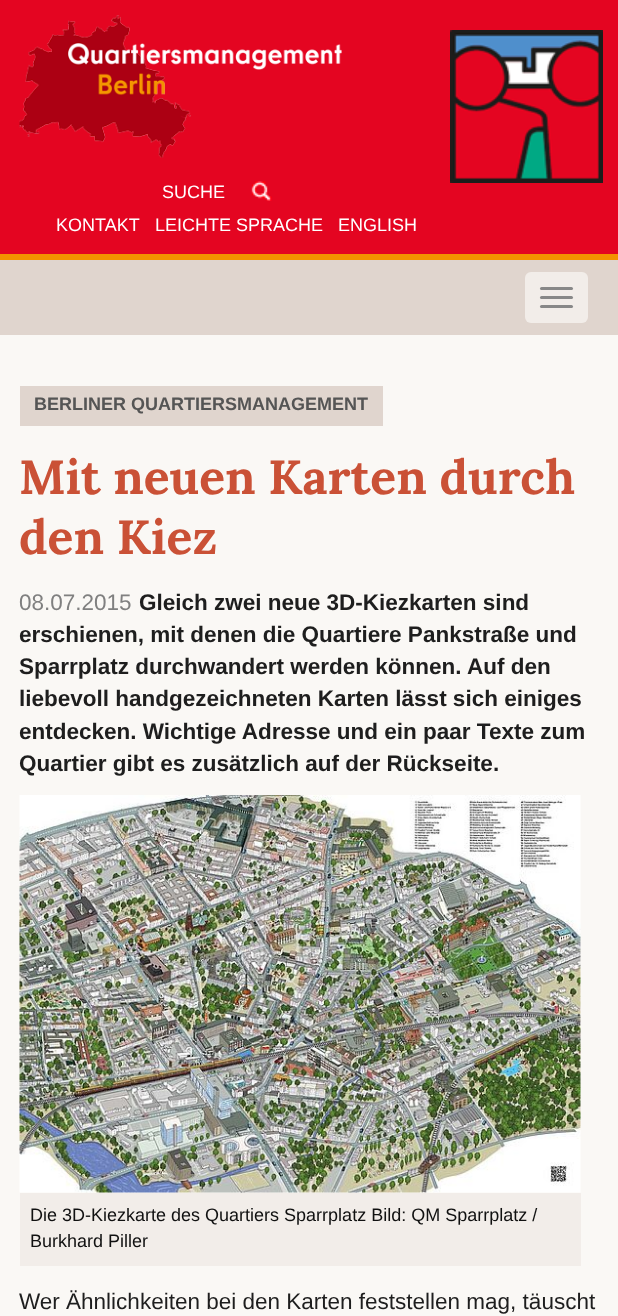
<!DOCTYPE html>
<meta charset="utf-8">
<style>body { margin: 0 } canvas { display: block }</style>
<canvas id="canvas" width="618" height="1316"></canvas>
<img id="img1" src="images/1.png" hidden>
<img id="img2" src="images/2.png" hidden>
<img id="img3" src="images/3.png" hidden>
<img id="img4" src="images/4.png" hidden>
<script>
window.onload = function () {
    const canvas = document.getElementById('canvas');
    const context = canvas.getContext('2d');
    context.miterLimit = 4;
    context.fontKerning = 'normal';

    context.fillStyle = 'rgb(250, 248, 245)';
    context.fillRect(0, 0, 618, 1316);
    context.fillStyle = 'rgb(228, 5, 33)';
    context.fillRect(0, 0, 618, 254);
    context.drawImage(document.getElementById('img1'), 19, 15, 323, 143);
    context.drawImage(document.getElementById('img2'), 450, 30, 153, 153);
    context.drawImage(document.getElementById('img3'), 251, 181, 21, 20);
    context.fillStyle = 'rgb(224, 213, 206)';
    context.fillRect(0, 260, 618, 75);
    context.fillStyle = 'rgb(243, 147, 0)';
    context.fillRect(0, 254, 618, 6);
    context.fillStyle = 'rgb(242, 237, 233)';
    context.beginPath();
    context.roundRect(525, 272, 63, 51, 6);
    context.fill();
    context.fillStyle = 'rgb(136, 136, 136)';
    context.beginPath();
    context.roundRect(540, 287, 33, 3, 1.5);
    context.fill();
    context.beginPath();
    context.roundRect(540, 296, 33, 3, 1.5);
    context.fill();
    context.beginPath();
    context.roundRect(540, 305, 33, 3, 1.5);
    context.fill();
    context.fillStyle = 'rgb(224, 213, 206)';
    context.fillRect(20, 386, 363, 40);
    context.drawImage(document.getElementById('img4'), 19, 795, 562, 398);
    context.fillStyle = 'rgb(242, 237, 233)';
    context.fillRect(20, 1193, 561, 73);
    context.font = '18px Liberation Sans';
    context.fillStyle = 'rgb(255, 255, 255)';
    context.fillText('SUCHE', 162, 198);
    context.fillText('KONTAKT', 56, 231);
    context.fillText('LEICHTE SPRACHE', 155, 231);
    context.fillText('ENGLISH', 338, 231);
    context.font = 'bold 18px Liberation Sans';
    context.fillStyle = 'rgb(85, 85, 85)';
    context.fillText('BERLINER QUARTIERSMANAGEMENT', 34, 410);
    context.font = 'bold 48px Lora';
    context.fillStyle = 'rgb(202, 81, 54)';
    context.fillText('Mit neuen Karten durch', 19, 494);
    context.fillText('den Kiez', 19, 554);
    context.font = 'bold 22.5px Liberation Sans';
    context.fillStyle = 'rgb(30, 30, 30)';
    context.fillText('Gleich zwei neue 3D-Kiezkarten sind', 139, 610);
    context.fillText('erschienen, mit denen die Quartiere Pankstraße und', 19, 642);
    context.fillText('Sparrplatz durchwandert werden können. Auf den', 19, 674);
    context.fillText('liebevoll handgezeichneten Karten lässt sich einiges', 19, 706);
    context.fillText('entdecken. Wichtige Adresse und ein paar Texte zum', 19, 739);
    context.fillText('Quartier gibt es zusätzlich auf der Rückseite.', 19, 771);
    context.font = '22.5px Liberation Sans';
    context.fillStyle = 'rgb(128, 128, 128)';
    context.fillText('08.07.2015', 19, 610);
    context.font = '18px Liberation Sans';
    context.fillStyle = 'rgb(17, 17, 17)';
    context.fillText('Die 3D-Kiezkarte des Quartiers Sparrplatz Bild: QM Sparrplatz /', 30, 1221);
    context.fillText('Burkhard Piller', 30, 1247);
    context.font = '22.5px Liberation Sans';
    context.fillStyle = 'rgb(30, 30, 30)';
    context.fillText('Wer Ähnlichkeiten bei den Karten feststellen mag, täuscht', 19, 1309);
};
</script>
